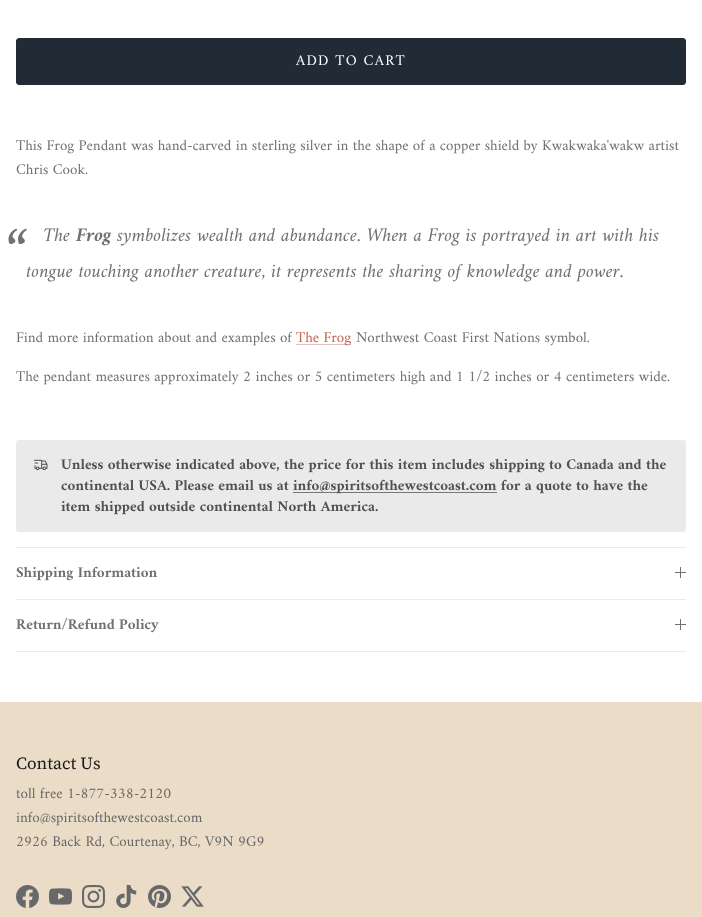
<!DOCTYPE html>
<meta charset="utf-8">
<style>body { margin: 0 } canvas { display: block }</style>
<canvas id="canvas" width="702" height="917"></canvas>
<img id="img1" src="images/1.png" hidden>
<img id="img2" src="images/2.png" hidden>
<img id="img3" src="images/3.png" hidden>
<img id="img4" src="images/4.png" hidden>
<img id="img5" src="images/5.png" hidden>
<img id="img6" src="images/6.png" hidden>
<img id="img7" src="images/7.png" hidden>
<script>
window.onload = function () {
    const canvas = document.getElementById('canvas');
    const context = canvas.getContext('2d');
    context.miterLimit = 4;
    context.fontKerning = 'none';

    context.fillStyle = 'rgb(255, 255, 255)';
    context.fillRect(0, 0, 702, 917);
    context.fillStyle = 'rgb(33, 43, 54)';
    context.beginPath();
    context.roundRect(16.5, 38.5, 669, 46, 2.5);
    context.fill();
    context.strokeStyle = 'rgb(33, 43, 54)';
    context.stroke();
    context.fillStyle = 'rgb(230, 193, 186)';
    context.fillRect(296, 344, 55, 1);
    context.fillStyle = 'rgb(234, 234, 234)';
    context.beginPath();
    context.roundRect(16, 440, 670, 92, 3);
    context.fill();
    context.drawImage(document.getElementById('img1'), 33, 459, 15, 12);
    context.fillStyle = 'rgb(119, 119, 119)';
    context.fillRect(293, 492, 204, 1);
    context.fillStyle = 'rgb(234, 234, 234)';
    context.fillRect(16, 547, 670, 1);
    context.fillRect(16, 599, 670, 1);
    context.fillStyle = 'rgb(112, 113, 115)';
    context.fillRect(680, 567, 1, 11);
    context.fillRect(675, 572, 11, 1);
    context.fillStyle = 'rgb(234, 234, 234)';
    context.fillRect(16, 651, 670, 1);
    context.fillStyle = 'rgb(112, 113, 115)';
    context.fillRect(680, 619, 1, 11);
    context.fillRect(675, 624, 11, 1);
    context.fillStyle = 'rgb(234, 220, 198)';
    context.fillRect(0, 702, 702, 215);
    context.drawImage(document.getElementById('img2'), 16, 885, 23, 23);
    context.drawImage(document.getElementById('img3'), 49, 888, 23, 17);
    context.drawImage(document.getElementById('img4'), 82, 885, 23, 23);
    context.drawImage(document.getElementById('img5'), 116, 885, 21, 23);
    context.drawImage(document.getElementById('img6'), 148, 885, 23, 23);
    context.drawImage(document.getElementById('img7'), 181, 886, 23, 21);
    context.letterSpacing = '1.25px';
    context.font = '15px Amiri';
    context.fillStyle = 'rgb(255, 255, 255)';
    context.fillText('ADD TO CART', 296, 65);
    context.letterSpacing = '0px';
    context.fillStyle = 'rgb(112, 113, 115)';
    context.fillText('This Frog Pendant was hand-carved in sterling silver in the shape of a copper shield by Kwakwaka\'wakw artist', 16, 150);
    context.fillText('Chris Cook.', 16, 174);
    context.font = 'italic 58px Amiri';
    context.fillText('“', 6, 270);
    context.font = 'italic 19.5px Amiri';
    context.fillText('The', 43, 241);
    context.font = 'italic bold 19.5px Amiri';
    context.fillText('Frog', 76, 241);
    context.font = 'italic 19.5px Amiri';
    context.fillText('symbolizes wealth and abundance. When a Frog is portrayed in art with his', 117, 241);
    context.fillText('tongue touching another creature, it represents the sharing of knowledge and power.', 26, 277);
    context.font = '15px Amiri';
    context.fillText('Find more information about and examples of', 16, 342);
    context.fillStyle = 'rgb(193, 100, 82)';
    context.fillText('The Frog', 296, 342);
    context.fillStyle = 'rgb(112, 113, 115)';
    context.fillText('Northwest Coast First Nations symbol.', 356, 342);
    context.fillText('The pendant measures approximately 2 inches or 5 centimeters high and 1 1/2 inches or 4 centimeters wide.', 16, 381);
    context.font = 'bold 15px Amiri';
    context.fillStyle = 'rgb(81, 81, 81)';
    context.fillText('Unless otherwise indicated above, the price for this item includes shipping to Canada and the', 61, 469);
    context.fillText('continental USA. Please email us at', 61, 490);
    context.fillText('info@spiritsofthewestcoast.com for a quote to have the', 293, 490);
    context.fillText('item shipped outside continental North America.', 61, 511);
    context.fillStyle = 'rgb(112, 113, 115)';
    context.fillText('Shipping Information', 16, 577);
    context.fillText('Return/Refund Policy', 16, 629);
    context.font = '17px "Source Serif 4"';
    context.fillStyle = 'rgb(23, 23, 23)';
    context.fillText('Contact Us', 16, 769);
    context.font = '15px Amiri';
    context.fillStyle = 'rgb(103, 104, 105)';
    context.fillText('toll free 1-877-338-2120', 16, 798);
    context.fillText('info@spiritsofthewestcoast.com', 16, 822);
    context.fillText('2926 Back Rd, Courtenay, BC, V9N 9G9', 16, 846);
};
</script>
